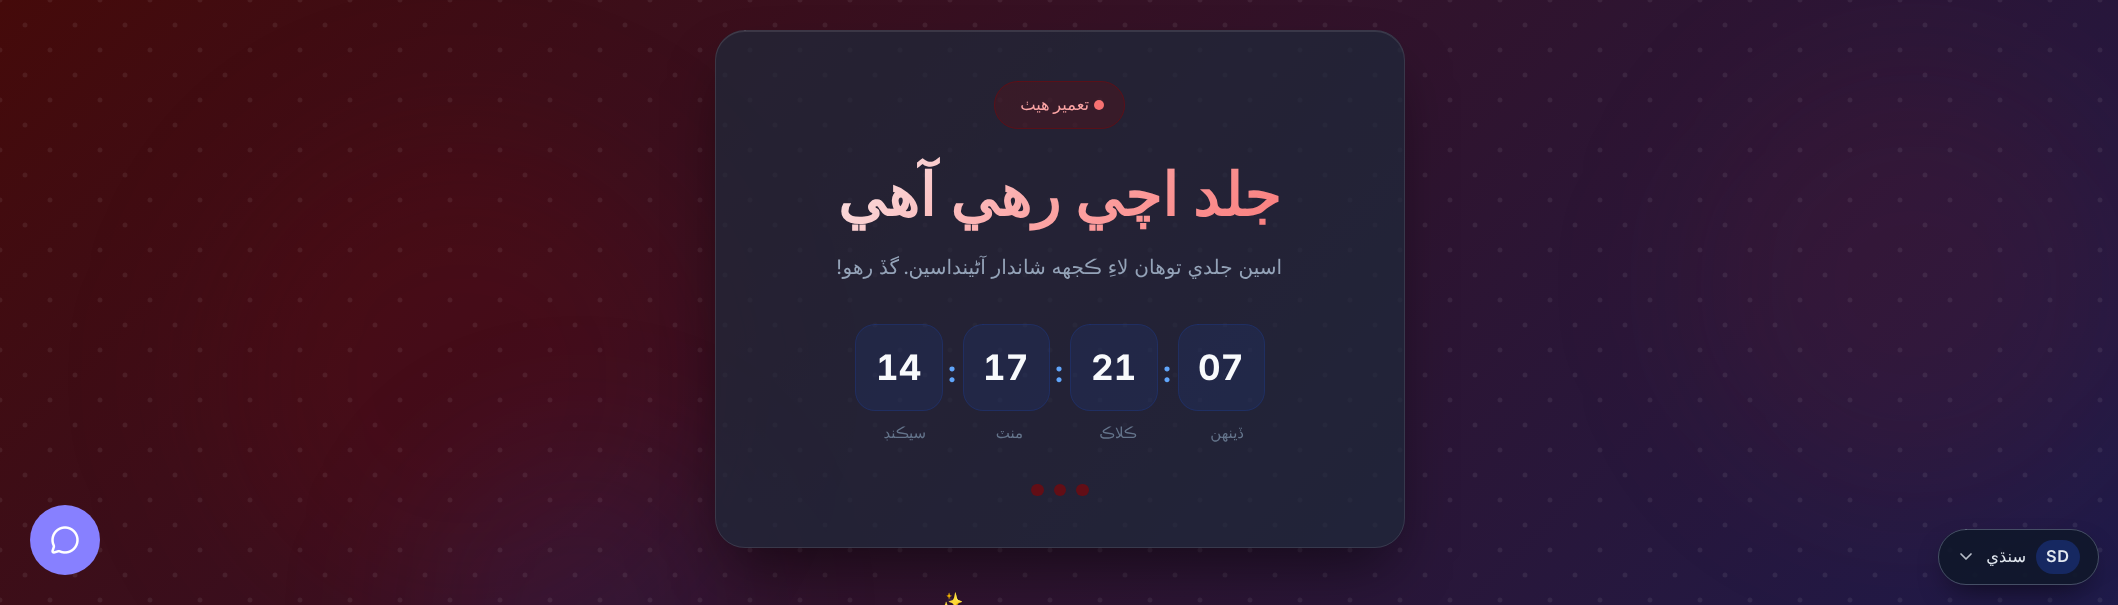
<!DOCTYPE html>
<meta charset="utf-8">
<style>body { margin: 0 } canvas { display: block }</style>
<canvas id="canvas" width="2118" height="605"></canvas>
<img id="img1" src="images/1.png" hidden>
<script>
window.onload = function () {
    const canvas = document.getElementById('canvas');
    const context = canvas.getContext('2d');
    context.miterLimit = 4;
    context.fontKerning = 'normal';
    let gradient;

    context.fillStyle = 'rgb(255, 255, 255)';
    context.fillRect(0, 0, 2118, 605);
    gradient = context.createLinearGradient(369, -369, 1750, 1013);
    gradient.addColorStop(0, 'rgb(69, 10, 10)');
    gradient.addColorStop(1, 'rgb(30, 27, 75)');
    context.fillStyle = gradient;
    context.fillRect(0, 0, 2118, 605);
    context.fillStyle = 'rgba(139, 0, 0, 0.14)';
    context.filter = 'blur(75px)';
    context.beginPath();
    context.roundRect(213, 129, 500, 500, 250);
    context.fill();
    context.filter = 'none';
    context.fillStyle = 'rgba(153, 27, 27, 0.1)';
    context.filter = 'blur(75px)';
    context.beginPath();
    context.roundRect(1695, 65, 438, 438, 219);
    context.fill();
    context.filter = 'none';
    context.beginPath();
    context.moveTo(0, 0);
    context.lineTo(2100.2, 0);
    context.strokeStyle = 'rgba(255, 255, 255, 0.07)';
    context.lineWidth = 5;
    context.lineCap = 'round';
    context.setLineDash([0, 50]);
    context.stroke();
    context.beginPath();
    context.moveTo(0, 50);
    context.lineTo(2100.2, 50);
    context.stroke();
    context.beginPath();
    context.moveTo(0, 100);
    context.lineTo(2100.2, 100);
    context.stroke();
    context.beginPath();
    context.moveTo(0, 150);
    context.lineTo(2100.2, 150);
    context.stroke();
    context.beginPath();
    context.moveTo(0, 200);
    context.lineTo(2100.2, 200);
    context.stroke();
    context.fillStyle = 'rgba(30, 64, 175, 0.12)';
    context.filter = 'blur(75px)';
    context.beginPath();
    context.roundRect(424, 451, 312, 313, 156);
    context.fill();
    context.filter = 'none';
    context.beginPath();
    context.moveTo(0, 250);
    context.lineTo(2100.2, 250);
    context.stroke();
    context.beginPath();
    context.moveTo(0, 300);
    context.lineTo(2100.2, 300);
    context.stroke();
    context.beginPath();
    context.moveTo(0, 350);
    context.lineTo(2100.2, 350);
    context.stroke();
    context.beginPath();
    context.moveTo(0, 400);
    context.lineTo(2100.2, 400);
    context.stroke();
    context.beginPath();
    context.moveTo(0, 450);
    context.lineTo(2100.2, 450);
    context.stroke();
    context.beginPath();
    context.moveTo(0, 500);
    context.lineTo(2100.2, 500);
    context.stroke();
    context.beginPath();
    context.moveTo(0, 550);
    context.lineTo(2100.2, 550);
    context.stroke();
    context.beginPath();
    context.moveTo(0, 600);
    context.lineTo(2100.2, 600);
    context.stroke();
    context.beginPath();
    context.moveTo(25, 25);
    context.lineTo(2075.2, 25);
    context.stroke();
    context.beginPath();
    context.moveTo(25, 75);
    context.lineTo(2075.2, 75);
    context.stroke();
    context.beginPath();
    context.moveTo(25, 125);
    context.lineTo(2075.2, 125);
    context.stroke();
    context.beginPath();
    context.moveTo(25, 175);
    context.lineTo(2075.2, 175);
    context.stroke();
    context.beginPath();
    context.moveTo(25, 225);
    context.lineTo(2075.2, 225);
    context.stroke();
    context.beginPath();
    context.moveTo(25, 275);
    context.lineTo(2075.2, 275);
    context.stroke();
    context.beginPath();
    context.moveTo(25, 325);
    context.lineTo(2075.2, 325);
    context.stroke();
    context.beginPath();
    context.moveTo(25, 375);
    context.lineTo(2075.2, 375);
    context.stroke();
    context.beginPath();
    context.moveTo(25, 425);
    context.lineTo(2075.2, 425);
    context.stroke();
    context.beginPath();
    context.moveTo(25, 475);
    context.lineTo(2075.2, 475);
    context.stroke();
    context.beginPath();
    context.moveTo(25, 525);
    context.lineTo(2075.2, 525);
    context.stroke();
    context.beginPath();
    context.moveTo(25, 575);
    context.lineTo(2075.2, 575);
    context.stroke();
    context.save();
    context.beginPath();
    context.moveTo(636, 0);
    context.lineTo(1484, 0);
    context.lineTo(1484, 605);
    context.lineTo(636, 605);
    context.closePath();
    context.moveTo(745, 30);
    context.lineTo(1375, 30);
    context.bezierCurveTo(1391.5, 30, 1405, 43.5, 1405, 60);
    context.lineTo(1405, 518);
    context.bezierCurveTo(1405, 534.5, 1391.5, 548, 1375, 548);
    context.lineTo(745, 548);
    context.bezierCurveTo(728.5, 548, 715, 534.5, 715, 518);
    context.lineTo(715, 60);
    context.bezierCurveTo(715, 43.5, 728.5, 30, 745, 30);
    context.closePath();
    context.clip('evenodd');
    context.fillStyle = 'rgba(0, 0, 0, 0.5)';
    context.filter = 'blur(31px)';
    context.beginPath();
    context.roundRect(730, 76, 660, 488, 15);
    context.fill();
    context.filter = 'none';
    context.restore();
    context.fillStyle = 'rgba(30, 41, 59, 0.7)';
    context.beginPath();
    context.roundRect(715, 30, 690, 518, 30);
    context.fill();
    context.fillStyle = 'rgba(255, 255, 255, 0.1)';
    context.beginPath();
    context.moveTo(745, 32);
    context.lineTo(1375, 32);
    context.bezierCurveTo(1391, 32, 1404, 45, 1404, 61);
    context.lineTo(1404, 60);
    context.bezierCurveTo(1404, 44, 1391, 31, 1375, 31);
    context.lineTo(745, 31);
    context.bezierCurveTo(729, 31, 716, 44, 716, 60);
    context.lineTo(716, 61);
    context.bezierCurveTo(716, 45, 729, 32, 745, 32);
    context.closePath();
    context.fill();
    context.beginPath();
    context.roundRect(715.5, 30.5, 689, 517, 29.5);
    context.strokeStyle = 'rgba(255, 255, 255, 0.1)';
    context.lineWidth = 1;
    context.setLineDash([]);
    context.stroke();
    context.fillStyle = 'rgba(139, 0, 0, 0.2)';
    context.beginPath();
    context.roundRect(994, 81, 131, 48, 24);
    context.fill();
    context.beginPath();
    context.roundRect(994.5, 81.5, 130, 47, 23.5);
    context.strokeStyle = 'rgba(139, 0, 0, 0.4)';
    context.stroke();
    context.fillStyle = 'rgb(248, 113, 113)';
    context.beginPath();
    context.arc(1099, 105, 5, 0, 2 * Math.PI);
    context.fill();
    context.fillStyle = 'rgba(30, 58, 138, 0.2)';
    context.beginPath();
    context.roundRect(1178, 324, 87, 87, 20);
    context.fill();
    context.beginPath();
    context.roundRect(1178.5, 324.5, 86, 86, 19.5);
    context.strokeStyle = 'rgba(30, 58, 138, 0.4)';
    context.stroke();
    context.beginPath();
    context.roundRect(1070, 324, 88, 87, 20);
    context.fill();
    context.beginPath();
    context.roundRect(1070.5, 324.5, 87, 86, 19.5);
    context.stroke();
    context.beginPath();
    context.roundRect(963, 324, 87, 87, 20);
    context.fill();
    context.beginPath();
    context.roundRect(963.5, 324.5, 86, 86, 19.5);
    context.stroke();
    context.beginPath();
    context.roundRect(855, 324, 88, 87, 20);
    context.fill();
    context.beginPath();
    context.roundRect(855.5, 324.5, 87, 86, 19.5);
    context.stroke();
    context.fillStyle = 'rgb(98, 14, 22)';
    context.beginPath();
    context.roundRect(1076, 484, 13, 12, 6);
    context.fill();
    context.beginPath();
    context.arc(1060, 490, 6, 0, 2 * Math.PI);
    context.fill();
    context.beginPath();
    context.roundRect(1031, 484, 13, 12, 6);
    context.fill();
    context.save();
    context.beginPath();
    context.moveTo(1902, 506);
    context.lineTo(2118, 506);
    context.lineTo(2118, 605);
    context.lineTo(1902, 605);
    context.closePath();
    context.moveTo(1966, 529);
    context.lineTo(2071, 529);
    context.bezierCurveTo(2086.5, 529, 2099, 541.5, 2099, 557);
    context.bezierCurveTo(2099, 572.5, 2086.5, 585, 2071, 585);
    context.lineTo(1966, 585);
    context.bezierCurveTo(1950.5, 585, 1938, 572.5, 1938, 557);
    context.bezierCurveTo(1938, 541.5, 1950.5, 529, 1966, 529);
    context.closePath();
    context.clip('evenodd');
    context.fillStyle = 'rgba(0, 0, 0, 0.7)';
    context.filter = 'blur(15.5px)';
    context.beginPath();
    context.roundRect(1950, 554, 136, 31, 15.5);
    context.fill();
    context.filter = 'none';
    context.restore();
    context.fillStyle = 'rgba(15, 23, 42, 0.9)';
    context.beginPath();
    context.roundRect(1938, 529, 161, 56, 28);
    context.fill();
    context.beginPath();
    context.roundRect(1938.5, 529.5, 160, 55, 27.5);
    context.strokeStyle = 'rgba(148, 163, 184, 0.4)';
    context.stroke();
    context.fillStyle = 'rgb(22, 40, 97)';
    context.beginPath();
    context.roundRect(2036, 540, 44, 34, 17);
    context.fill();
    context.beginPath();
    context.moveTo(1961, 554);
    context.lineTo(1966, 559);
    context.lineTo(1971, 554);
    context.strokeStyle = 'rgb(184, 190, 201)';
    context.lineWidth = 1.7;
    context.lineJoin = 'round';
    context.stroke();
    context.fillStyle = 'rgb(135, 128, 255)';
    context.beginPath();
    context.arc(65, 540, 35, 0, 2 * Math.PI);
    context.fill();
    context.drawImage(document.getElementById('img1'), 51, 526, 28, 28);
    context.letterSpacing = '0.6px';
    context.wordSpacing = '-2px';
    context.direction = 'rtl';
    context.font = '16.25px DejaVu Sans';
    context.fillStyle = 'rgb(252, 165, 165)';
    context.fillText('تعمير هيٺ', 1089, 110);
    context.letterSpacing = '0px';
    context.wordSpacing = '-5px';
    context.font = 'bold 60px DejaVu Sans';
    gradient = context.createLinearGradient(890, 24, 1229, 364);
    gradient.addColorStop(0, 'rgb(248, 250, 252)');
    gradient.addColorStop(0.5, 'rgb(252, 165, 165)');
    gradient.addColorStop(1, 'rgb(248, 113, 113)');
    context.fillStyle = gradient;
    context.fillText('جلد اچي رهي آهي', 1281, 216);
    context.wordSpacing = '-0.5px';
    context.font = '20px DejaVu Sans';
    context.fillStyle = 'rgb(148, 163, 184)';
    context.fillText('اسين جلدي توهان لاءِ ڪجهه شاندار آڻينداسين', 1282, 274);
    context.wordSpacing = '0px';
    context.font = '20px Inter';
    context.fillText('.', 909, 274);
    context.wordSpacing = '-0.5px';
    context.font = '20px DejaVu Sans';
    context.fillText('گڏ رهو', 899, 274);
    context.wordSpacing = '0px';
    context.font = '20px Inter';
    context.fillText('!', 842, 274);
    context.direction = 'ltr';
    context.font = 'bold 35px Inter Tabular';
    context.fillStyle = 'rgb(248, 250, 252)';
    context.fillText('07', 1198, 380);
    context.font = 'bold 30px Inter';
    context.fillStyle = 'rgb(96, 165, 250)';
    context.fillText(':', 1162, 382);
    context.letterSpacing = '1.25px';
    context.direction = 'rtl';
    context.font = '15px DejaVu Sans';
    context.fillStyle = 'rgb(100, 116, 139)';
    context.fillText('ڏينهن', 1244, 438);
    context.letterSpacing = '0px';
    context.direction = 'ltr';
    context.font = 'bold 35px Inter Tabular';
    context.fillStyle = 'rgb(248, 250, 252)';
    context.fillText('21', 1091, 380);
    context.font = 'bold 30px Inter';
    context.fillStyle = 'rgb(96, 165, 250)';
    context.fillText(':', 1054, 382);
    context.letterSpacing = '1.25px';
    context.direction = 'rtl';
    context.font = '15px DejaVu Sans';
    context.fillStyle = 'rgb(100, 116, 139)';
    context.fillText('ڪلاڪ', 1137, 438);
    context.letterSpacing = '0px';
    context.direction = 'ltr';
    context.font = 'bold 35px Inter Tabular';
    context.fillStyle = 'rgb(248, 250, 252)';
    context.fillText('17', 983, 380);
    context.font = 'bold 30px Inter';
    context.fillStyle = 'rgb(96, 165, 250)';
    context.fillText(':', 947, 382);
    context.letterSpacing = '1.25px';
    context.direction = 'rtl';
    context.font = '15px DejaVu Sans';
    context.fillStyle = 'rgb(100, 116, 139)';
    context.fillText('منٽ', 1023, 438);
    context.letterSpacing = '0px';
    context.direction = 'ltr';
    context.font = 'bold 35px Inter Tabular';
    context.fillStyle = 'rgb(248, 250, 252)';
    context.fillText('14', 876, 380);
    context.letterSpacing = '1.25px';
    context.direction = 'rtl';
    context.font = '15px DejaVu Sans';
    context.fillStyle = 'rgb(100, 116, 139)';
    context.fillText('سيڪنڊ', 926, 438);
    context.letterSpacing = '0.6px';
    context.direction = 'ltr';
    context.font = '600 16.25px Inter';
    context.fillStyle = 'rgb(226, 232, 240)';
    context.fillText('SD', 2046, 562);
    context.letterSpacing = '0px';
    context.direction = 'rtl';
    context.font = '16.25px DejaVu Sans';
    context.fillText('سنڌي', 2026, 562);
    context.direction = 'ltr';
    context.font = '18px Noto Color Emoji';
    context.fillStyle = 'rgb(100, 116, 139)';
    context.fillText('✨', 941, 608);
};
</script>
